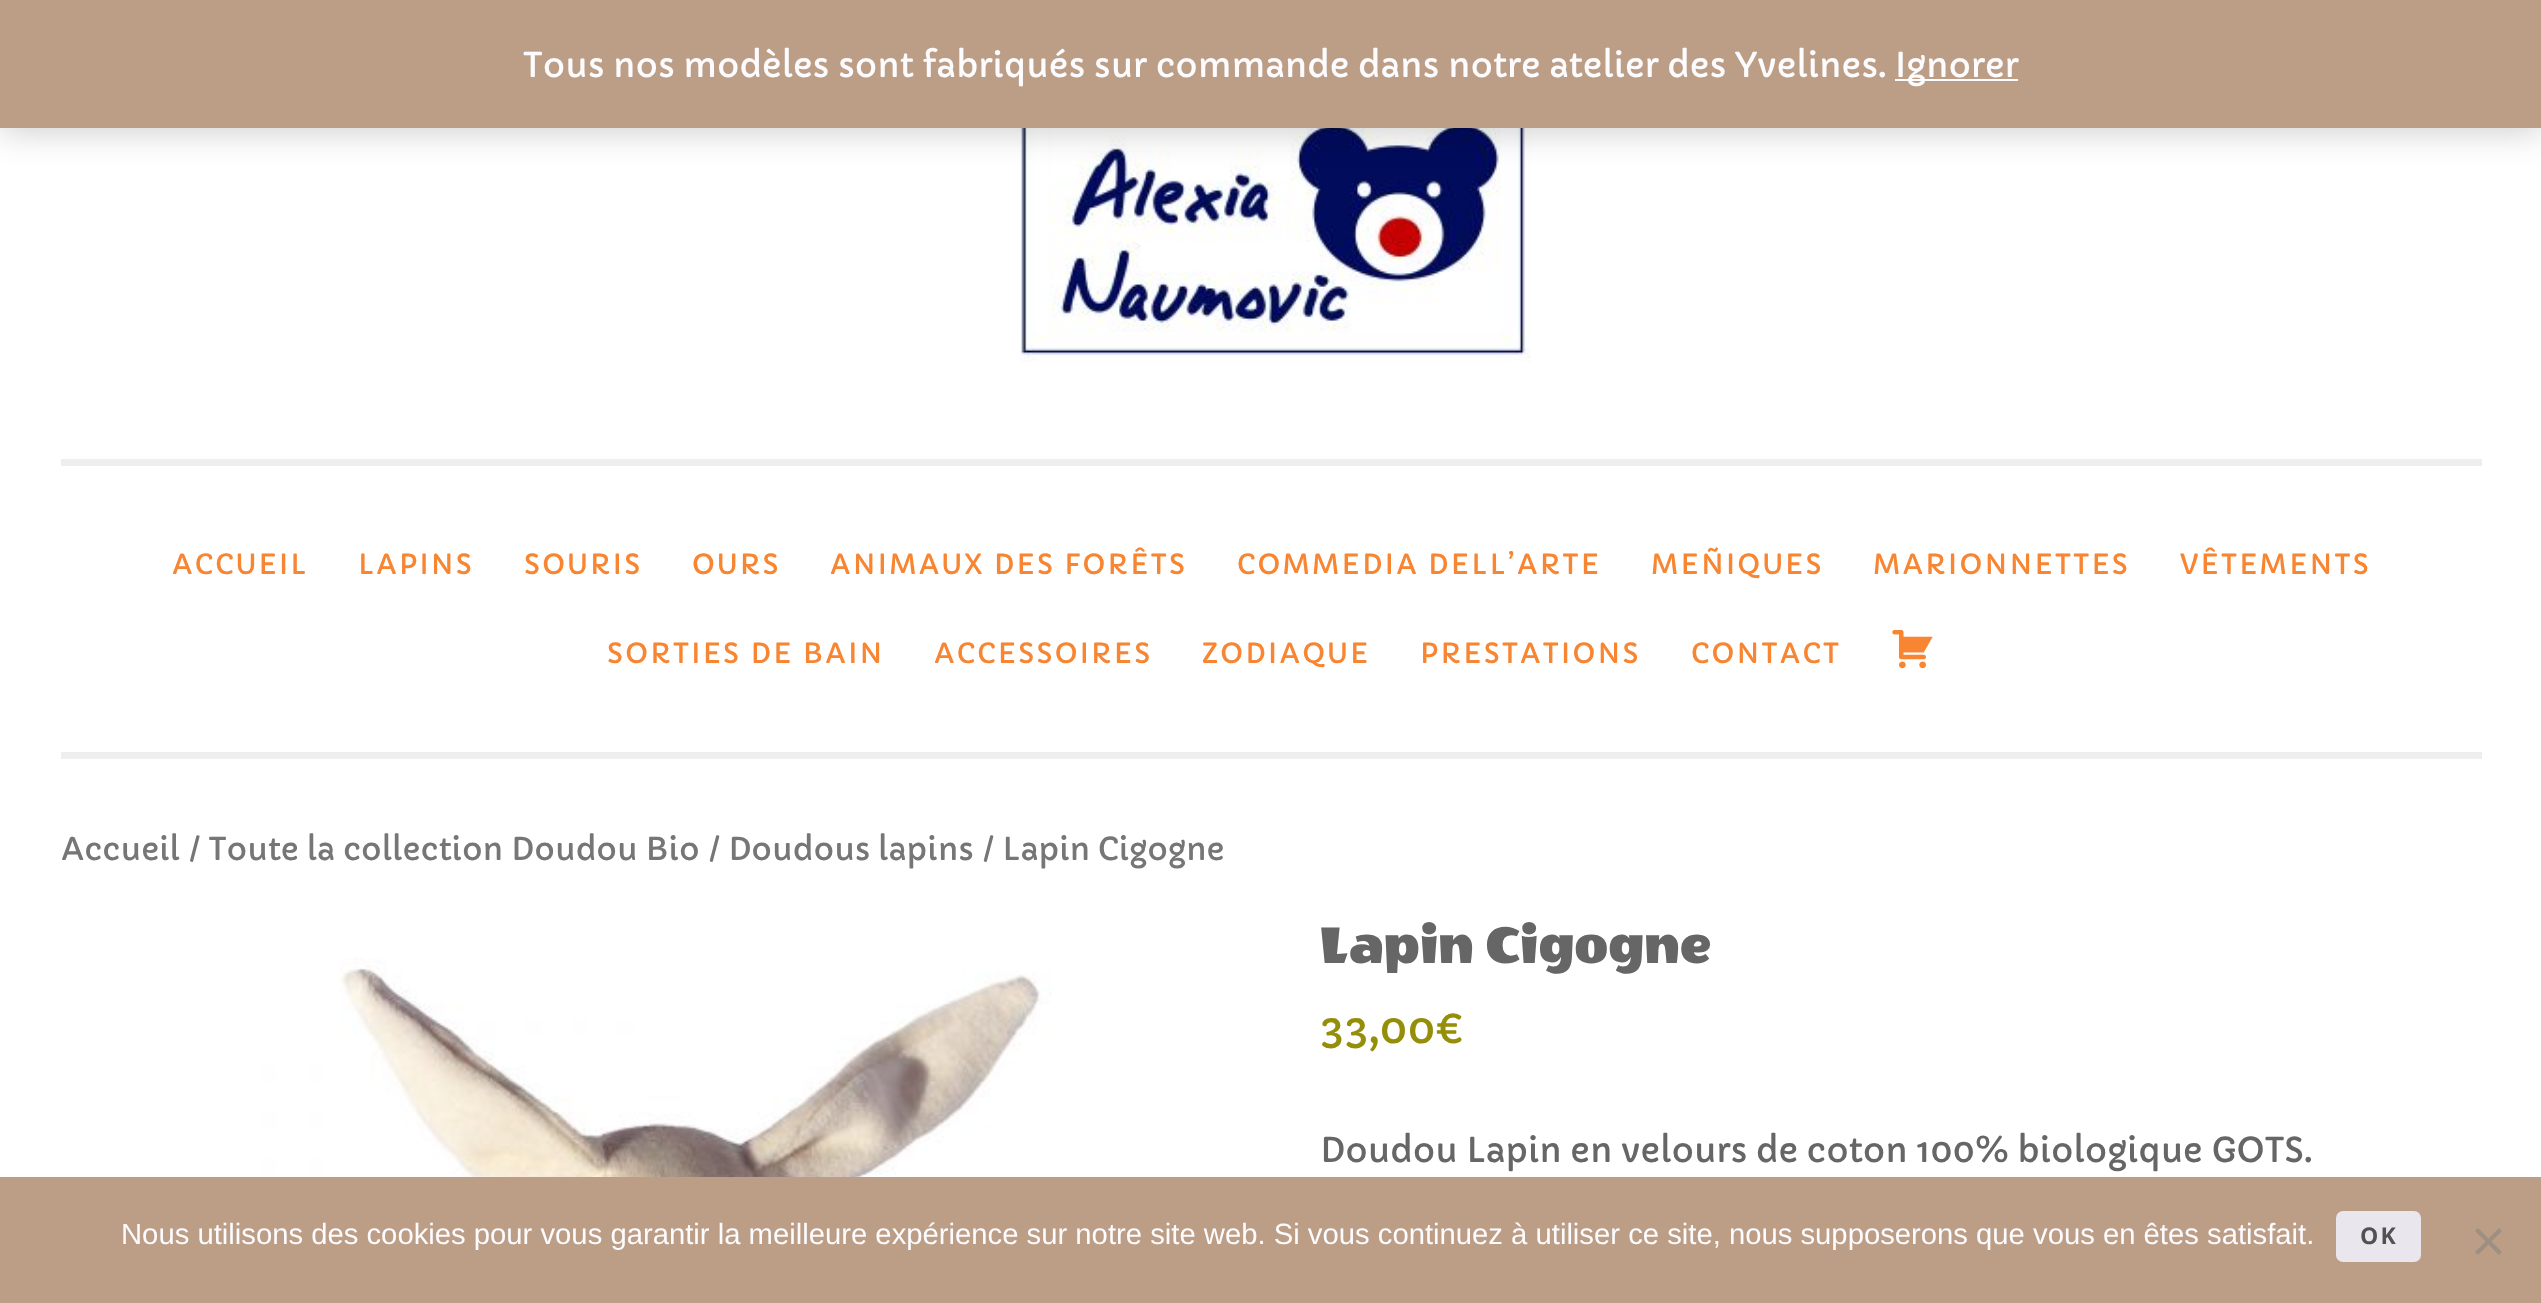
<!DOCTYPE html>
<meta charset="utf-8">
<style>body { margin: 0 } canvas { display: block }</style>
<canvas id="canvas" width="2541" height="1303"></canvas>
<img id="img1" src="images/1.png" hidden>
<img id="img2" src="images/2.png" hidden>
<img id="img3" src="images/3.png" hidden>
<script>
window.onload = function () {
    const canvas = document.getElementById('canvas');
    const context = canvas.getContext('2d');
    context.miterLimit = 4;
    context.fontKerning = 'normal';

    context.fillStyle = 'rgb(255, 255, 255)';
    context.fillRect(0, 0, 2541, 1303);
    context.drawImage(document.getElementById('img1'), 1020, 128, 511, 234);
    context.fillStyle = 'rgba(0, 0, 0, 0.2)';
    context.filter = 'blur(17px)';
    context.beginPath();
    context.rect(0, 2, 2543, 129);
    context.fill();
    context.filter = 'none';
    context.fillStyle = 'rgb(188, 157, 133)';
    context.fillRect(0, 0, 2541, 128);
    context.fillStyle = 'rgb(252, 251, 254)';
    context.fillRect(1895, 79, 123, 2);
    context.fillStyle = 'rgb(238, 238, 238)';
    context.fillRect(61, 752, 2421, 7);
    context.fillRect(61, 459, 2421, 7);
    context.drawImage(document.getElementById('img2'), 1892, 630, 41, 39);
    context.drawImage(document.getElementById('img3'), 246, 958, 829, 219);
    context.fillStyle = 'rgb(188, 157, 133)';
    context.fillRect(0, 1177, 2541, 126);
    context.fillStyle = 'rgb(233, 230, 237)';
    context.beginPath();
    context.roundRect(2336, 1211, 85, 51, 7);
    context.fill();
    context.fillStyle = 'rgb(158, 143, 131)';
    context.beginPath();
    context.moveTo(2499, 1228);
    context.lineTo(2502, 1231);
    context.lineTo(2478, 1255);
    context.lineTo(2475, 1252);
    context.closePath();
    context.fill();
    context.beginPath();
    context.moveTo(2475, 1231);
    context.lineTo(2478, 1228);
    context.lineTo(2502, 1252);
    context.lineTo(2499, 1255);
    context.closePath();
    context.fill();
    context.font = '33.75px Capriola';
    context.fillStyle = 'rgb(252, 251, 254)';
    context.fillText('Tous nos modèles sont fabriqués sur commande dans notre atelier des Yvelines.', 523, 77);
    context.fillText('Ignorer', 1895, 77);
    context.letterSpacing = '2.25px';
    context.font = '27.4px Capriola';
    context.fillStyle = 'rgb(247, 133, 49)';
    context.fillText('ACCUEIL', 172, 574);
    context.fillText('LAPINS', 358, 574);
    context.fillText('SOURIS', 524, 574);
    context.fillText('OURS', 692, 574);
    context.fillText('ANIMAUX DES FORÊTS', 830, 574);
    context.fillText('COMMEDIA DELL’ARTE', 1237, 574);
    context.fillText('MEÑIQUES', 1651, 574);
    context.fillText('MARIONNETTES', 1873, 574);
    context.fillText('VÊTEMENTS', 2180, 574);
    context.fillText('SORTIES DE BAIN', 607, 663);
    context.fillText('ACCESSOIRES', 934, 663);
    context.fillText('ZODIAQUE', 1202, 663);
    context.fillText('PRESTATIONS', 1420, 663);
    context.fillText('CONTACT', 1691, 663);
    context.letterSpacing = '0px';
    context.font = '31.05px Capriola';
    context.fillStyle = 'rgb(118, 118, 118)';
    context.fillText('Accueil / Toute la collection Doudou Bio / Doudous lapins / Lapin Cigogne', 61, 860);
    context.font = '58.5px Wendy One';
    context.fillStyle = 'rgb(102, 102, 102)';
    context.fillText('Lapin Cigogne', 1320, 963);
    context.font = '42px Capriola';
    context.fillStyle = 'rgb(149, 142, 9)';
    context.fillText('33,00€', 1320, 1043);
    context.font = '33.75px Capriola';
    context.fillStyle = 'rgb(102, 102, 102)';
    context.fillText('Doudou Lapin en velours de coton 100% biologique GOTS.', 1320, 1162);
    context.font = '29.25px Liberation Sans';
    context.fillStyle = 'rgb(252, 251, 254)';
    context.fillText('Nous utilisons des cookies pour vous garantir la meilleure expérience sur notre site web. Si vous continuez à utiliser ce site, nous supposerons que vous en êtes satisfait.', 121, 1244);
    context.letterSpacing = '2.25px';
    context.font = 'bold 23px Open Sans';
    context.fillStyle = 'rgb(81, 81, 81)';
    context.fillText('OK', 2360, 1244);
};
</script>
